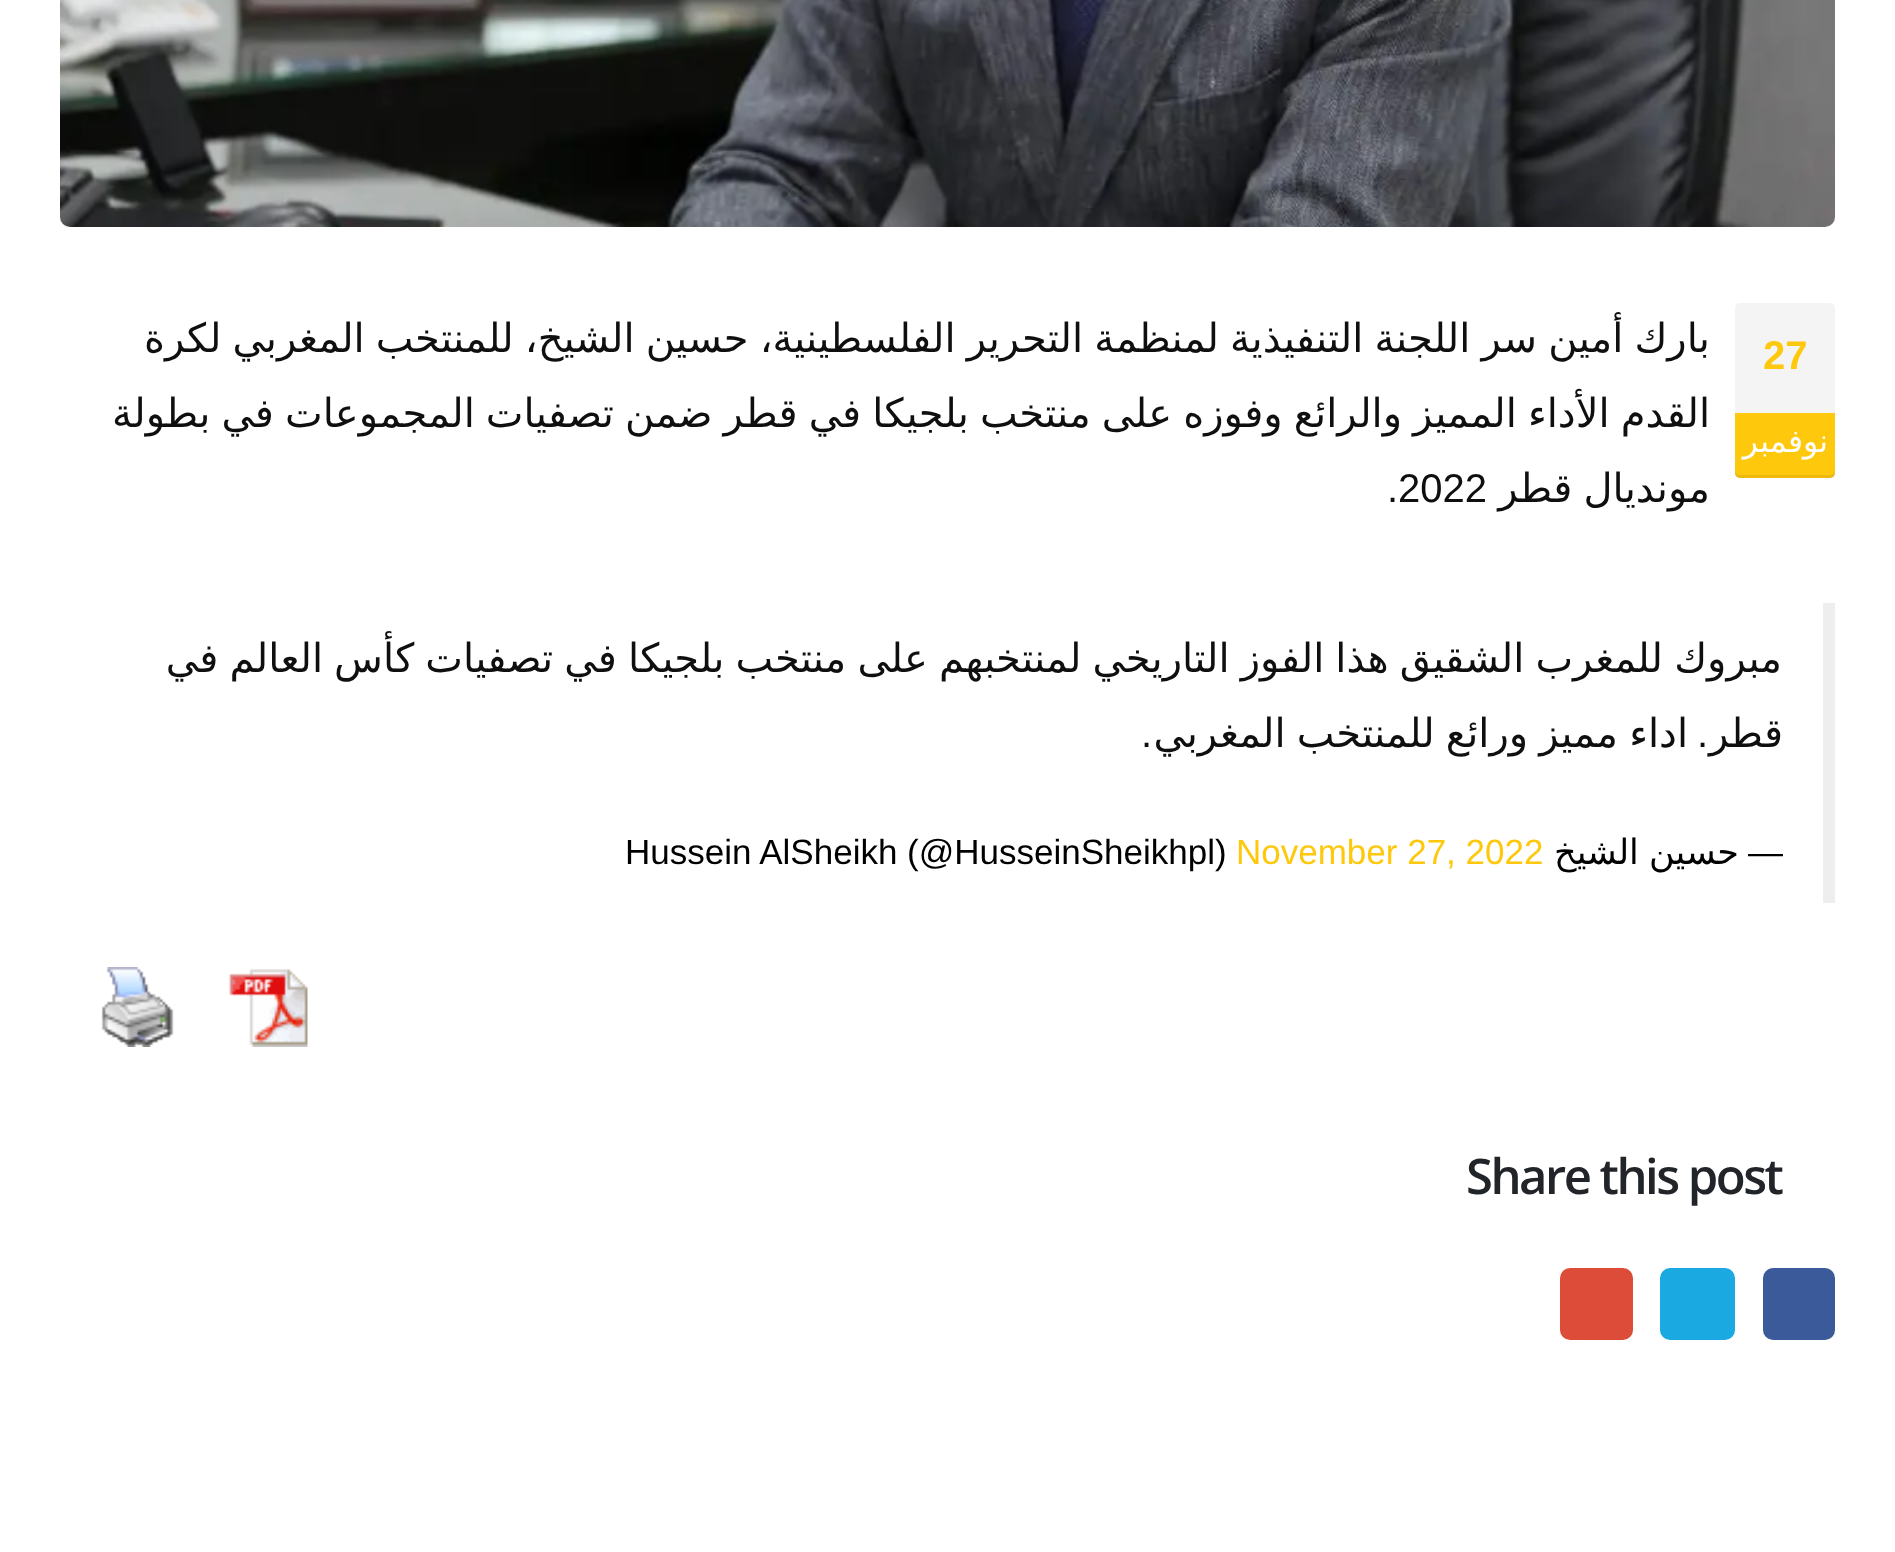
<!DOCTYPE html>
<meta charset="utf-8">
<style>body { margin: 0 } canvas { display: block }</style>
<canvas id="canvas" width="1895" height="1552"></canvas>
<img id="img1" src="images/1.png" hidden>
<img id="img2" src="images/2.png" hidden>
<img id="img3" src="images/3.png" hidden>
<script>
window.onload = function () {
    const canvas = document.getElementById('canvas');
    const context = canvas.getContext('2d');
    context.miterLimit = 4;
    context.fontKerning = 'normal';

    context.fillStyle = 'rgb(255, 255, 255)';
    context.fillRect(0, 0, 1895, 1552);
    context.drawImage(document.getElementById('img1'), 60, 0, 1775, 227);
    context.fillStyle = 'rgb(238, 238, 238)';
    context.fillRect(1823, 603, 12, 300);
    context.drawImage(document.getElementById('img2'), 229, 968, 79, 79);
    context.drawImage(document.getElementById('img3'), 101, 967, 73, 80);
    context.fillStyle = 'rgb(244, 244, 244)';
    context.beginPath();
    context.roundRect(1735, 303, 100, 110, [5, 5, 0, 0]);
    context.fill();
    context.fillStyle = 'rgb(254, 200, 13)';
    context.beginPath();
    context.roundRect(1735, 413, 100, 65, [0, 0, 5, 5]);
    context.fill();
    context.fillStyle = 'rgba(0, 0, 0, 0.07)';
    context.beginPath();
    context.moveTo(1735, 470);
    context.lineTo(1735, 473);
    context.bezierCurveTo(1735, 476, 1737, 478, 1740, 478);
    context.lineTo(1830, 478);
    context.bezierCurveTo(1833, 478, 1835, 476, 1835, 473);
    context.lineTo(1835, 470);
    context.bezierCurveTo(1835, 473, 1833, 475, 1830, 475);
    context.lineTo(1740, 475);
    context.bezierCurveTo(1737, 475, 1735, 473, 1735, 470);
    context.closePath();
    context.fill();
    context.fillStyle = 'rgb(59, 90, 154)';
    context.beginPath();
    context.roundRect(1763, 1268, 72, 72, 10);
    context.fill();
    context.fillStyle = 'rgb(26, 169, 225)';
    context.beginPath();
    context.roundRect(1660, 1268, 75, 72, 10);
    context.fill();
    context.fillStyle = 'rgb(221, 75, 57)';
    context.beginPath();
    context.roundRect(1560, 1268, 73, 72, 10);
    context.fill();
    context.wordSpacing = '-1.6px';
    context.direction = 'rtl';
    context.font = '40px DejaVu Sans';
    context.fillStyle = 'rgb(15, 15, 15)';
    context.fillText('بارك أمين سر اللجنة التنفيذية لمنظمة التحرير الفلسطينية، حسين الشيخ، للمنتخب المغربي لكرة', 1710, 352);
    context.fillText('القدم الأداء المميز والرائع وفوزه على منتخب بلجيكا في قطر ضمن تصفيات المجموعات في بطولة', 1710, 427);
    context.fillText('مونديال قطر', 1710, 502);
    context.wordSpacing = '0px';
    context.direction = 'ltr';
    context.font = '40px Liberation Sans';
    context.fillText('.2022', 1387, 502);
    context.wordSpacing = '-1.6px';
    context.direction = 'rtl';
    context.font = '40px DejaVu Sans';
    context.fillText('مبروك للمغرب الشقيق هذا الفوز التاريخي لمنتخبهم على منتخب بلجيكا في تصفيات كأس العالم في', 1782, 672);
    context.wordSpacing = '0px';
    context.fillText('قطر', 1783, 747);
    context.font = '40px Liberation Sans';
    context.fillText('.', 1708, 747);
    context.wordSpacing = '-1.5px';
    context.font = '40px DejaVu Sans';
    context.fillText('اداء مميز ورائع للمنتخب المغربي', 1688, 747);
    context.wordSpacing = '0px';
    context.font = '40px Liberation Sans';
    context.fillText('.', 1152, 747);
    context.font = '35px Liberation Sans';
    context.fillStyle = 'rgb(0, 0, 0)';
    context.fillText('—', 1783, 864);
    context.wordSpacing = '-1px';
    context.font = '35px DejaVu Sans';
    context.fillText('حسين الشيخ', 1739, 864);
    context.wordSpacing = '0px';
    context.direction = 'ltr';
    context.font = '35px Liberation Sans';
    context.fillStyle = 'rgb(254, 200, 13)';
    context.fillText('November 27, 2022', 1236, 864);
    context.fillStyle = 'rgb(0, 0, 0)';
    context.fillText('Hussein AlSheikh (@HusseinSheikhpl)', 625, 864);
    context.font = 'bold 40px Liberation Sans';
    context.fillStyle = 'rgb(254, 200, 13)';
    context.fillText('27', 1763, 369);
    context.direction = 'rtl';
    context.font = '31.5px DejaVu Sans';
    context.fillStyle = 'rgb(255, 255, 255)';
    context.fillText('نوفمبر', 1828, 452);
    context.letterSpacing = '-2.5px';
    context.direction = 'ltr';
    context.font = '600 49px Open Sans';
    context.fillStyle = 'rgb(33, 37, 41)';
    context.fillText('Share this post', 1466, 1194);
};
</script>
